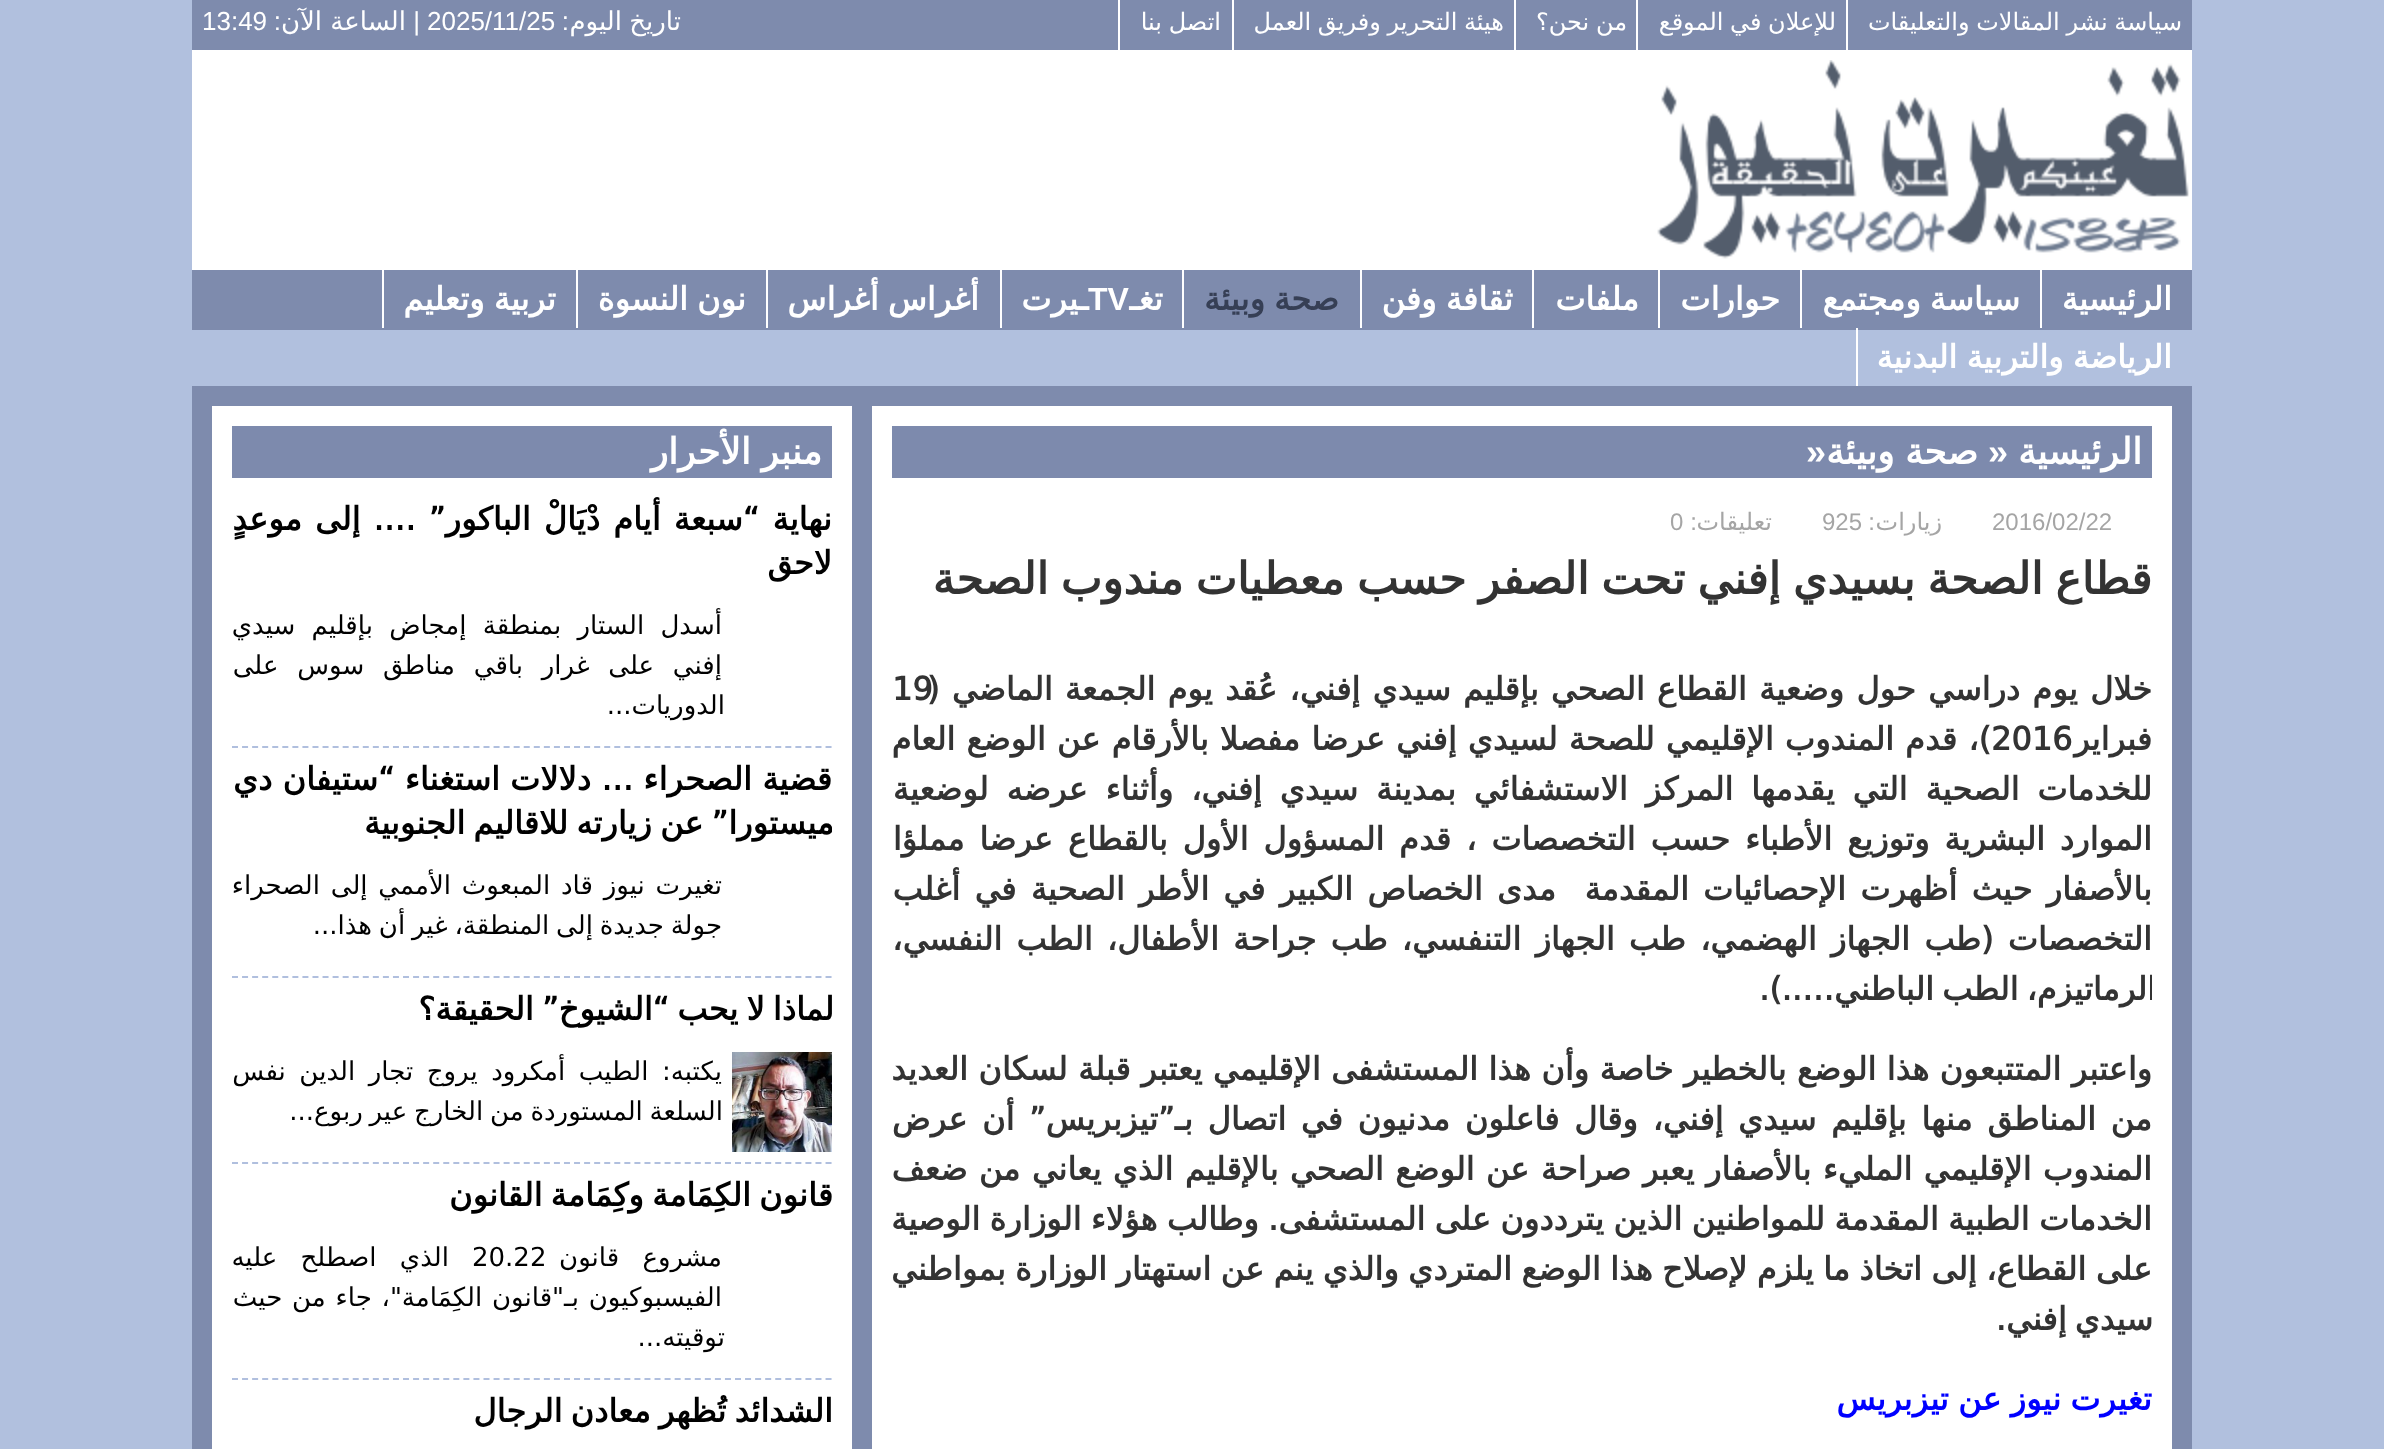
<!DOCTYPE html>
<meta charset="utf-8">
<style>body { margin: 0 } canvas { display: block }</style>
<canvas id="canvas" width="2384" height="1449"></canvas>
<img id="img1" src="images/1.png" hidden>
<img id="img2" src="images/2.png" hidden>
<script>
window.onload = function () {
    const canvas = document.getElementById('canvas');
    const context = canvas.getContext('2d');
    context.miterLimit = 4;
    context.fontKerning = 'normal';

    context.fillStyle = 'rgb(177, 192, 222)';
    context.fillRect(0, 0, 2384, 1449);
    context.fillStyle = 'rgb(126, 139, 173)';
    context.fillRect(192, 0, 2000, 50);
    context.fillStyle = 'rgb(255, 255, 255)';
    context.fillRect(1846, 0, 2, 50);
    context.fillRect(1636, 0, 2, 50);
    context.fillRect(1514, 0, 2, 50);
    context.fillRect(1232, 0, 2, 50);
    context.fillRect(1118, 0, 2, 50);
    context.fillRect(192, 50, 2000, 220);
    context.drawImage(document.getElementById('img1'), 1657, 60, 532, 199);
    context.fillStyle = 'rgb(126, 139, 173)';
    context.fillRect(192, 270, 2000, 60);
    context.fillStyle = 'rgb(255, 255, 255)';
    context.fillRect(2040, 270, 2, 58);
    context.fillRect(1800, 270, 2, 58);
    context.fillRect(1658, 270, 2, 58);
    context.fillRect(1532, 270, 2, 58);
    context.fillRect(1360, 270, 2, 58);
    context.fillRect(1182, 270, 2, 58);
    context.fillRect(1000, 270, 2, 58);
    context.fillRect(766, 270, 2, 58);
    context.fillRect(576, 270, 2, 58);
    context.fillRect(382, 270, 2, 58);
    context.fillRect(1856, 328, 2, 58);
    context.fillStyle = 'rgb(126, 139, 173)';
    context.fillRect(192, 386, 2000, 1063);
    context.fillStyle = 'rgb(255, 255, 255)';
    context.fillRect(872, 406, 1300, 1043);
    context.fillStyle = 'rgb(125, 138, 173)';
    context.fillRect(892, 426, 1260, 52);
    context.fillStyle = 'rgb(255, 255, 255)';
    context.fillRect(212, 406, 640, 1043);
    context.fillStyle = 'rgb(125, 138, 173)';
    context.fillRect(232, 426, 600, 52);
    context.beginPath();
    context.moveTo(232, 747);
    context.lineTo(832, 747);
    context.strokeStyle = 'rgb(176, 191, 222)';
    context.lineWidth = 2;
    context.setLineDash([6, 4.06]);
    context.stroke();
    context.beginPath();
    context.moveTo(232, 977);
    context.lineTo(832, 977);
    context.stroke();
    context.beginPath();
    context.moveTo(232, 1163);
    context.lineTo(832, 1163);
    context.stroke();
    context.drawImage(document.getElementById('img2'), 732, 1052, 100, 100);
    context.beginPath();
    context.moveTo(232, 1379);
    context.lineTo(832, 1379);
    context.stroke();
    context.wordSpacing = '-1px';
    context.direction = 'rtl';
    context.font = '24px DejaVu Sans';
    context.fillStyle = 'rgb(255, 255, 255)';
    context.fillText('سياسة نشر المقالات والتعليقات', 2182, 30);
    context.fillText('للإعلان في الموقع', 1836, 30);
    context.fillText('من نحن؟', 1627, 30);
    context.fillText('هيئة التحرير وفريق العمل', 1504, 30);
    context.fillText('اتصل بنا', 1221, 30);
    context.font = '26px DejaVu Sans';
    context.fillText('تاريخ اليوم', 681, 30);
    context.wordSpacing = '0px';
    context.font = '26px Liberation Sans';
    context.fillText(':', 569, 30);
    context.direction = 'ltr';
    context.fillText('2025/11/25', 427, 30);
    context.direction = 'rtl';
    context.fillText('|', 420, 30);
    context.font = '26px DejaVu Sans';
    context.fillText('الساعة الآن', 406, 30);
    context.font = '26px Liberation Sans';
    context.fillText(':', 281, 30);
    context.direction = 'ltr';
    context.fillText('13:49', 202, 30);
    context.direction = 'rtl';
    context.font = 'bold 32px DejaVu Sans';
    context.fillText('الرئيسية', 2172, 310);
    context.wordSpacing = '-1px';
    context.fillText('سياسة ومجتمع', 2020, 310);
    context.wordSpacing = '0px';
    context.fillText('حوارات', 1780, 310);
    context.fillText('ملفات', 1639, 310);
    context.wordSpacing = '-1px';
    context.fillText('ثقافة وفن', 1513, 310);
    context.fillStyle = 'rgb(54, 63, 85)';
    context.fillText('صحة وبيئة', 1339, 310);
    context.wordSpacing = '0px';
    context.fillStyle = 'rgb(255, 255, 255)';
    context.fillText('ـيرت', 1088, 310);
    context.direction = 'ltr';
    context.font = 'bold 32px Liberation Sans';
    context.fillText('TV', 1088, 310);
    context.direction = 'rtl';
    context.font = 'bold 32px DejaVu Sans';
    context.fillText('تغـ', 1163, 310);
    context.wordSpacing = '-1px';
    context.fillText('أغراس أغراس', 979, 310);
    context.fillText('نون النسوة', 746, 310);
    context.fillText('تربية وتعليم', 556, 310);
    context.fillText('الرياضة والتربية البدنية', 2172, 368);
    context.wordSpacing = '0px';
    context.font = 'bold 36px DejaVu Sans';
    context.fillText('الرئيسية', 2142, 464);
    context.direction = 'ltr';
    context.font = 'bold 36px Liberation Sans';
    context.fillText('»', 1988, 464);
    context.wordSpacing = '-1px';
    context.direction = 'rtl';
    context.font = 'bold 36px DejaVu Sans';
    context.fillText('صحة وبيئة', 1978, 464);
    context.wordSpacing = '0px';
    context.direction = 'ltr';
    context.font = 'bold 36px Liberation Sans';
    context.fillText('»', 1806, 464);
    context.font = '24px Liberation Sans';
    context.fillStyle = 'rgb(165, 165, 165)';
    context.fillText('2016/02/22', 1992, 530);
    context.direction = 'rtl';
    context.font = '24px DejaVu Sans';
    context.fillText('زيارات', 1942, 530);
    context.font = '24px Liberation Sans';
    context.fillText(':', 1875, 530);
    context.direction = 'ltr';
    context.fillText('925', 1822, 530);
    context.direction = 'rtl';
    context.font = '24px DejaVu Sans';
    context.fillText('تعليقات', 1772, 530);
    context.font = '24px Liberation Sans';
    context.fillText(':', 1697, 530);
    context.direction = 'ltr';
    context.fillText('0', 1670, 530);
    context.save();
    context.beginPath();
    context.rect(892, 426, 1260, 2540);
    context.clip();
    context.wordSpacing = '-1.75px';
    context.direction = 'rtl';
    context.font = 'bold 44px DejaVu Sans';
    context.fillStyle = 'rgb(51, 51, 51)';
    context.fillText('قطاع الصحة بسيدي إفني تحت الصفر حسب معطيات مندوب الصحة', 2152, 594);
    context.restore();
    context.font = 'bold 32px DejaVu Sans';
    context.fillStyle = 'rgb(51, 51, 51)';
    context.fillText('19', 892, 700);
    context.wordSpacing = '2.1px';
    context.direction = 'rtl';
    context.fillText('خلال يوم دراسي حول وضعية القطاع الصحي بإقليم سيدي إفني، عُقد يوم الجمعة الماضي (', 2152, 700);
    context.wordSpacing = '0px';
    context.fillText('فبراير', 2152, 750);
    context.direction = 'ltr';
    context.fillText('2016', 1991, 750);
    context.wordSpacing = '1px';
    context.direction = 'rtl';
    context.fillText(')، قدم المندوب الإقليمي للصحة لسيدي إفني عرضا مفصلا بالأرقام عن الوضع العام', 1991, 750);
    context.wordSpacing = '7.75px';
    context.fillText('للخدمات الصحية التي يقدمها المركز الاستشفائي بمدينة سيدي إفني، وأثناء عرضه لوضعية', 2152, 800);
    context.wordSpacing = '4.75px';
    context.fillText('الموارد البشرية وتوزيع الأطباء حسب التخصصات ، قدم المسؤول الأول بالقطاع عرضا مملؤا', 2152, 850);
    context.wordSpacing = '4.1px';
    context.fillText('بالأصفار حيث أظهرت الإحصائيات المقدمة  مدى الخصاص الكبير في الأطر الصحية في أغلب', 2152, 900);
    context.wordSpacing = '4px';
    context.fillText('التخصصات (طب الجهاز الهضمي، طب الجهاز التنفسي، طب جراحة الأطفال، الطب النفسي،', 2152, 950);
    context.save();
    context.beginPath();
    context.rect(892, 426, 1260, 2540);
    context.clip();
    context.wordSpacing = '-2px';
    context.fillText('الرماتيزم، الطب الباطني…..).', 2156, 1000);
    context.restore();
    context.wordSpacing = '0.25px';
    context.fillText('واعتبر المتتبعون هذا الوضع بالخطير خاصة وأن هذا المستشفى الإقليمي يعتبر قبلة لسكان العديد', 2152, 1080);
    context.wordSpacing = '4.5px';
    context.fillText('من المناطق منها بإقليم سيدي إفني، وقال فاعلون مدنيون في اتصال بـ”تيزبريس” أن عرض', 2152, 1130);
    context.wordSpacing = '1.25px';
    context.fillText('المندوب الإقليمي المليء بالأصفار يعبر صراحة عن الوضع الصحي بالإقليم الذي يعاني من ضعف', 2152, 1180);
    context.save();
    context.beginPath();
    context.rect(892, 426, 1260, 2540);
    context.clip();
    context.wordSpacing = '-0.75px';
    context.fillText('الخدمات الطبية المقدمة للمواطنين الذين يترددون على المستشفى. وطالب هؤلاء الوزارة الوصية', 2152, 1230);
    context.fillText('على القطاع، إلى اتخاذ ما يلزم لإصلاح هذا الوضع المتردي والذي ينم عن استهتار الوزارة بمواطني', 2152, 1280);
    context.restore();
    context.wordSpacing = '-2px';
    context.fillText('سيدي إفني.', 2153, 1330);
    context.save();
    context.beginPath();
    context.rect(892, 426, 1260, 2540);
    context.clip();
    context.wordSpacing = '-1px';
    context.fillStyle = 'rgb(0, 0, 255)';
    context.fillText('تغيرت نيوز عن تيزبريس', 2152, 1410);
    context.restore();
    context.wordSpacing = '-1px';
    context.font = 'bold 36px DejaVu Sans';
    context.fillStyle = 'rgb(255, 255, 255)';
    context.fillText('منبر الأحرار', 822, 464);
    context.wordSpacing = '3px';
    context.font = 'bold 32px DejaVu Sans';
    context.fillStyle = 'rgb(0, 0, 0)';
    context.fillText('نهاية “سبعة أيام دْيَالْ الباكور” …. إلى موعدٍ', 832, 530);
    context.wordSpacing = '0px';
    context.fillText('لاحق', 832, 574);
    context.wordSpacing = '8px';
    context.font = '26px DejaVu Sans';
    context.fillText('أسدل الستار بمنطقة إمجاض بإقليم سيدي', 722, 634);
    context.wordSpacing = '10.5px';
    context.fillText('إفني على غرار باقي مناطق سوس على', 722, 674);
    context.wordSpacing = '0px';
    context.fillText('الدوريات...', 725, 714);
    context.font = 'bold 32px DejaVu Sans';
    context.fillText('قضية الصحراء … دلالات استغناء “ستيفان دي', 832, 790);
    context.save();
    context.beginPath();
    context.rect(232, 758, 600, 218);
    context.clip();
    context.wordSpacing = '-2px';
    context.fillText('ميستورا” عن زيارته للاقاليم الجنوبية', 834, 834);
    context.restore();
    context.wordSpacing = '2.5px';
    context.font = '26px DejaVu Sans';
    context.fillText('تغيرت نيوز قاد المبعوث الأممي إلى الصحراء', 722, 894);
    context.wordSpacing = '-1.5px';
    context.fillText('جولة جديدة إلى المنطقة، غير أن هذا...', 722, 934);
    context.save();
    context.beginPath();
    context.rect(232, 988, 600, 174);
    context.clip();
    context.wordSpacing = '-2px';
    context.font = 'bold 32px DejaVu Sans';
    context.fillText('لماذا لا يحب “الشيوخ” الحقيقة؟', 834, 1020);
    context.restore();
    context.wordSpacing = '5.25px';
    context.fillText('يكتبه: الطيب أمكرود يروج تجار الدين نفس', 722, 1080);
    context.wordSpacing = '-1.5px';
    context.fillText('السلعة المستوردة من الخارج عير ربوع...', 723, 1120);
    context.save();
    context.beginPath();
    context.rect(232, 1174, 600, 204);
    context.clip();
    context.wordSpacing = '-2px';
    context.font = 'bold 32px DejaVu Sans';
    context.fillText('قانون الكِمَامة وكِمَامة القانون', 833, 1206);
    context.restore();
    context.wordSpacing = '15px';
    context.fillText('مشروع قانون', 722, 1266);
    context.wordSpacing = '0px';
    context.direction = 'ltr';
    context.fillText('20.22', 472, 1266);
    context.wordSpacing = '15px';
    context.direction = 'rtl';
    context.fillText('الذي اصطلح عليه', 449, 1266);
    context.wordSpacing = '1.5px';
    context.fillText('الفيسبوكيون بـ"قانون الكِمَامة"، جاء من حيث', 722, 1306);
    context.wordSpacing = '0px';
    context.fillText('توقيته...', 725, 1346);
    context.save();
    context.beginPath();
    context.rect(232, 1390, 600, 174);
    context.clip();
    context.wordSpacing = '-2px';
    context.font = 'bold 32px DejaVu Sans';
    context.fillText('الشدائد تُظهر معادن الرجال', 833, 1422);
    context.restore();
};
</script>
